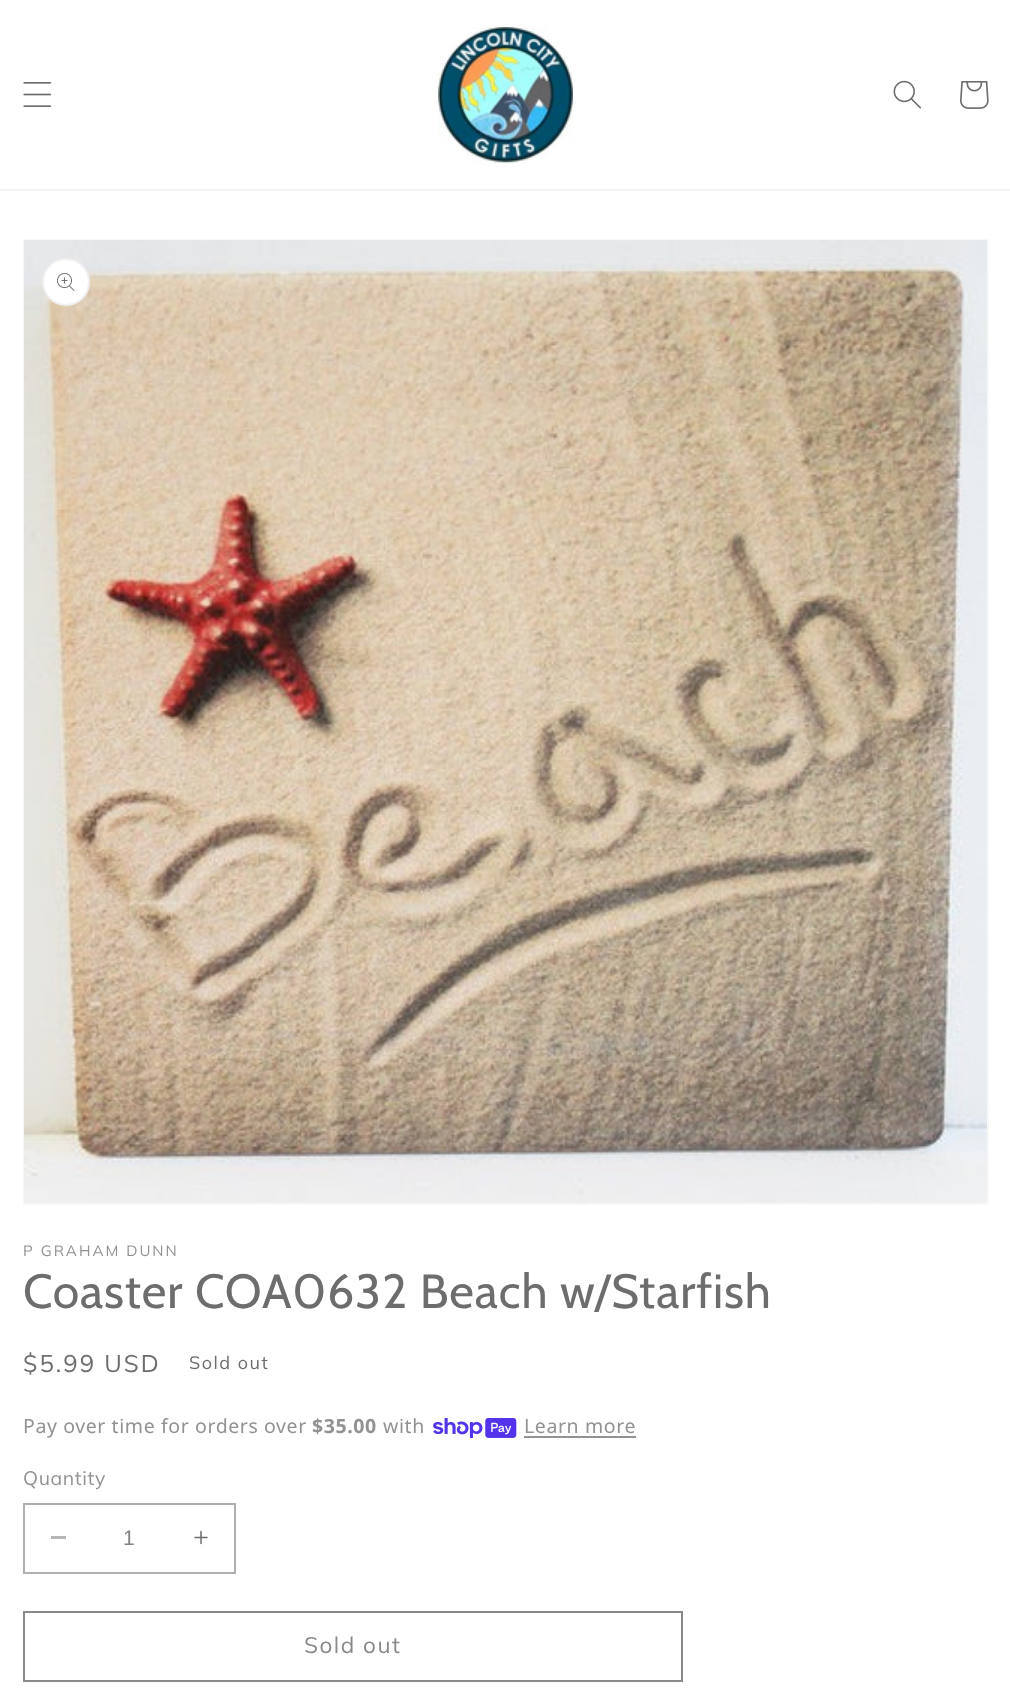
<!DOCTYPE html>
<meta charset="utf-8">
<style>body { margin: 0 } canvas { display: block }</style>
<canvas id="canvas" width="1010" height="1695"></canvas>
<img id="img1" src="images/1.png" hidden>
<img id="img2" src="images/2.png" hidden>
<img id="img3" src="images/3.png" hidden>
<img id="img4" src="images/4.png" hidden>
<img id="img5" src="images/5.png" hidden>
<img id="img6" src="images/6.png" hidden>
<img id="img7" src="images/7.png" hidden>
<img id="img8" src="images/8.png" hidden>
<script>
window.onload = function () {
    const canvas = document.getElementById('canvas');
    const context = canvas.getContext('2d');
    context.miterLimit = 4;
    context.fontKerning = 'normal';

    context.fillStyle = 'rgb(255, 255, 255)';
    context.fillRect(0, 0, 1010, 1695);
    context.fillStyle = 'rgb(243, 243, 243)';
    context.fillRect(0, 189, 1010, 2);
    context.drawImage(document.getElementById('img1'), 23, 82, 29, 25);
    context.drawImage(document.getElementById('img2'), 438, 27, 135, 137);
    context.drawImage(document.getElementById('img3'), 893, 80, 28, 29);
    context.drawImage(document.getElementById('img4'), 960, 81, 29, 28);
    context.strokeStyle = 'rgb(248, 248, 248)';
    context.lineWidth = 2;
    context.strokeRect(24, 240, 964, 964);
    context.drawImage(document.getElementById('img5'), 24, 240, 963, 963);
    context.fillStyle = 'rgb(255, 255, 255)';
    context.beginPath();
    context.arc(66, 282, 24, 0, 2 * Math.PI);
    context.fill();
    context.beginPath();
    context.arc(66, 282, 23, 0, 2 * Math.PI);
    context.strokeStyle = 'rgba(109, 109, 109, 0.1)';
    context.stroke();
    context.drawImage(document.getElementById('img6'), 57, 273, 18, 18);
    context.drawImage(document.getElementById('img7'), 433, 1418, 84, 21);
    context.fillStyle = 'rgb(146, 146, 146)';
    context.fillRect(524, 1436, 112, 2);
    context.fillStyle = 'rgb(182, 182, 182)';
    context.fillRect(51, 1536, 15, 3);
    context.drawImage(document.getElementById('img8'), 194, 1530, 14, 15);
    context.strokeStyle = 'rgb(175, 175, 175)';
    context.strokeRect(24, 1504, 211, 69);
    context.strokeStyle = 'rgb(137, 137, 137)';
    context.strokeRect(24, 1612, 658, 69);
    context.letterSpacing = '2px';
    context.font = '15px Muli';
    context.fillStyle = 'rgb(146, 146, 146)';
    context.fillText('P GRAHAM DUNN', 23, 1256);
    context.letterSpacing = '0.9px';
    context.font = '48px Cabin';
    context.fillStyle = 'rgb(109, 109, 109)';
    context.fillText('Coaster COA0632 Beach w/Starfish', 23, 1308);
    context.letterSpacing = '2px';
    context.font = '24px Muli';
    context.fillText('$5.99 USD', 23, 1372);
    context.letterSpacing = '1.5px';
    context.font = '18px Muli';
    context.fillText('Sold out', 189, 1369);
    context.letterSpacing = '0.6px';
    context.font = '19.5px Noto Sans';
    context.fillStyle = 'rgb(146, 146, 146)';
    context.fillText('Pay over time for orders over', 23, 1433);
    context.font = 'bold 19.5px Noto Sans';
    context.fillText('$35.00', 312, 1433);
    context.font = '19.5px Noto Sans';
    context.fillText('with', 383, 1433);
    context.fillText('Learn more', 524, 1433);
    context.font = '19.5px Muli';
    context.fillText('Quantity', 23, 1485);
    context.letterSpacing = '0px';
    context.font = '21px Liberation Sans';
    context.fillStyle = 'rgb(131, 131, 131)';
    context.fillText('1', 123, 1545);
    context.letterSpacing = '1.5px';
    context.font = '22.5px Muli';
    context.fillStyle = 'rgb(137, 137, 137)';
    context.fillText('Sold out', 304, 1653);
};
</script>
